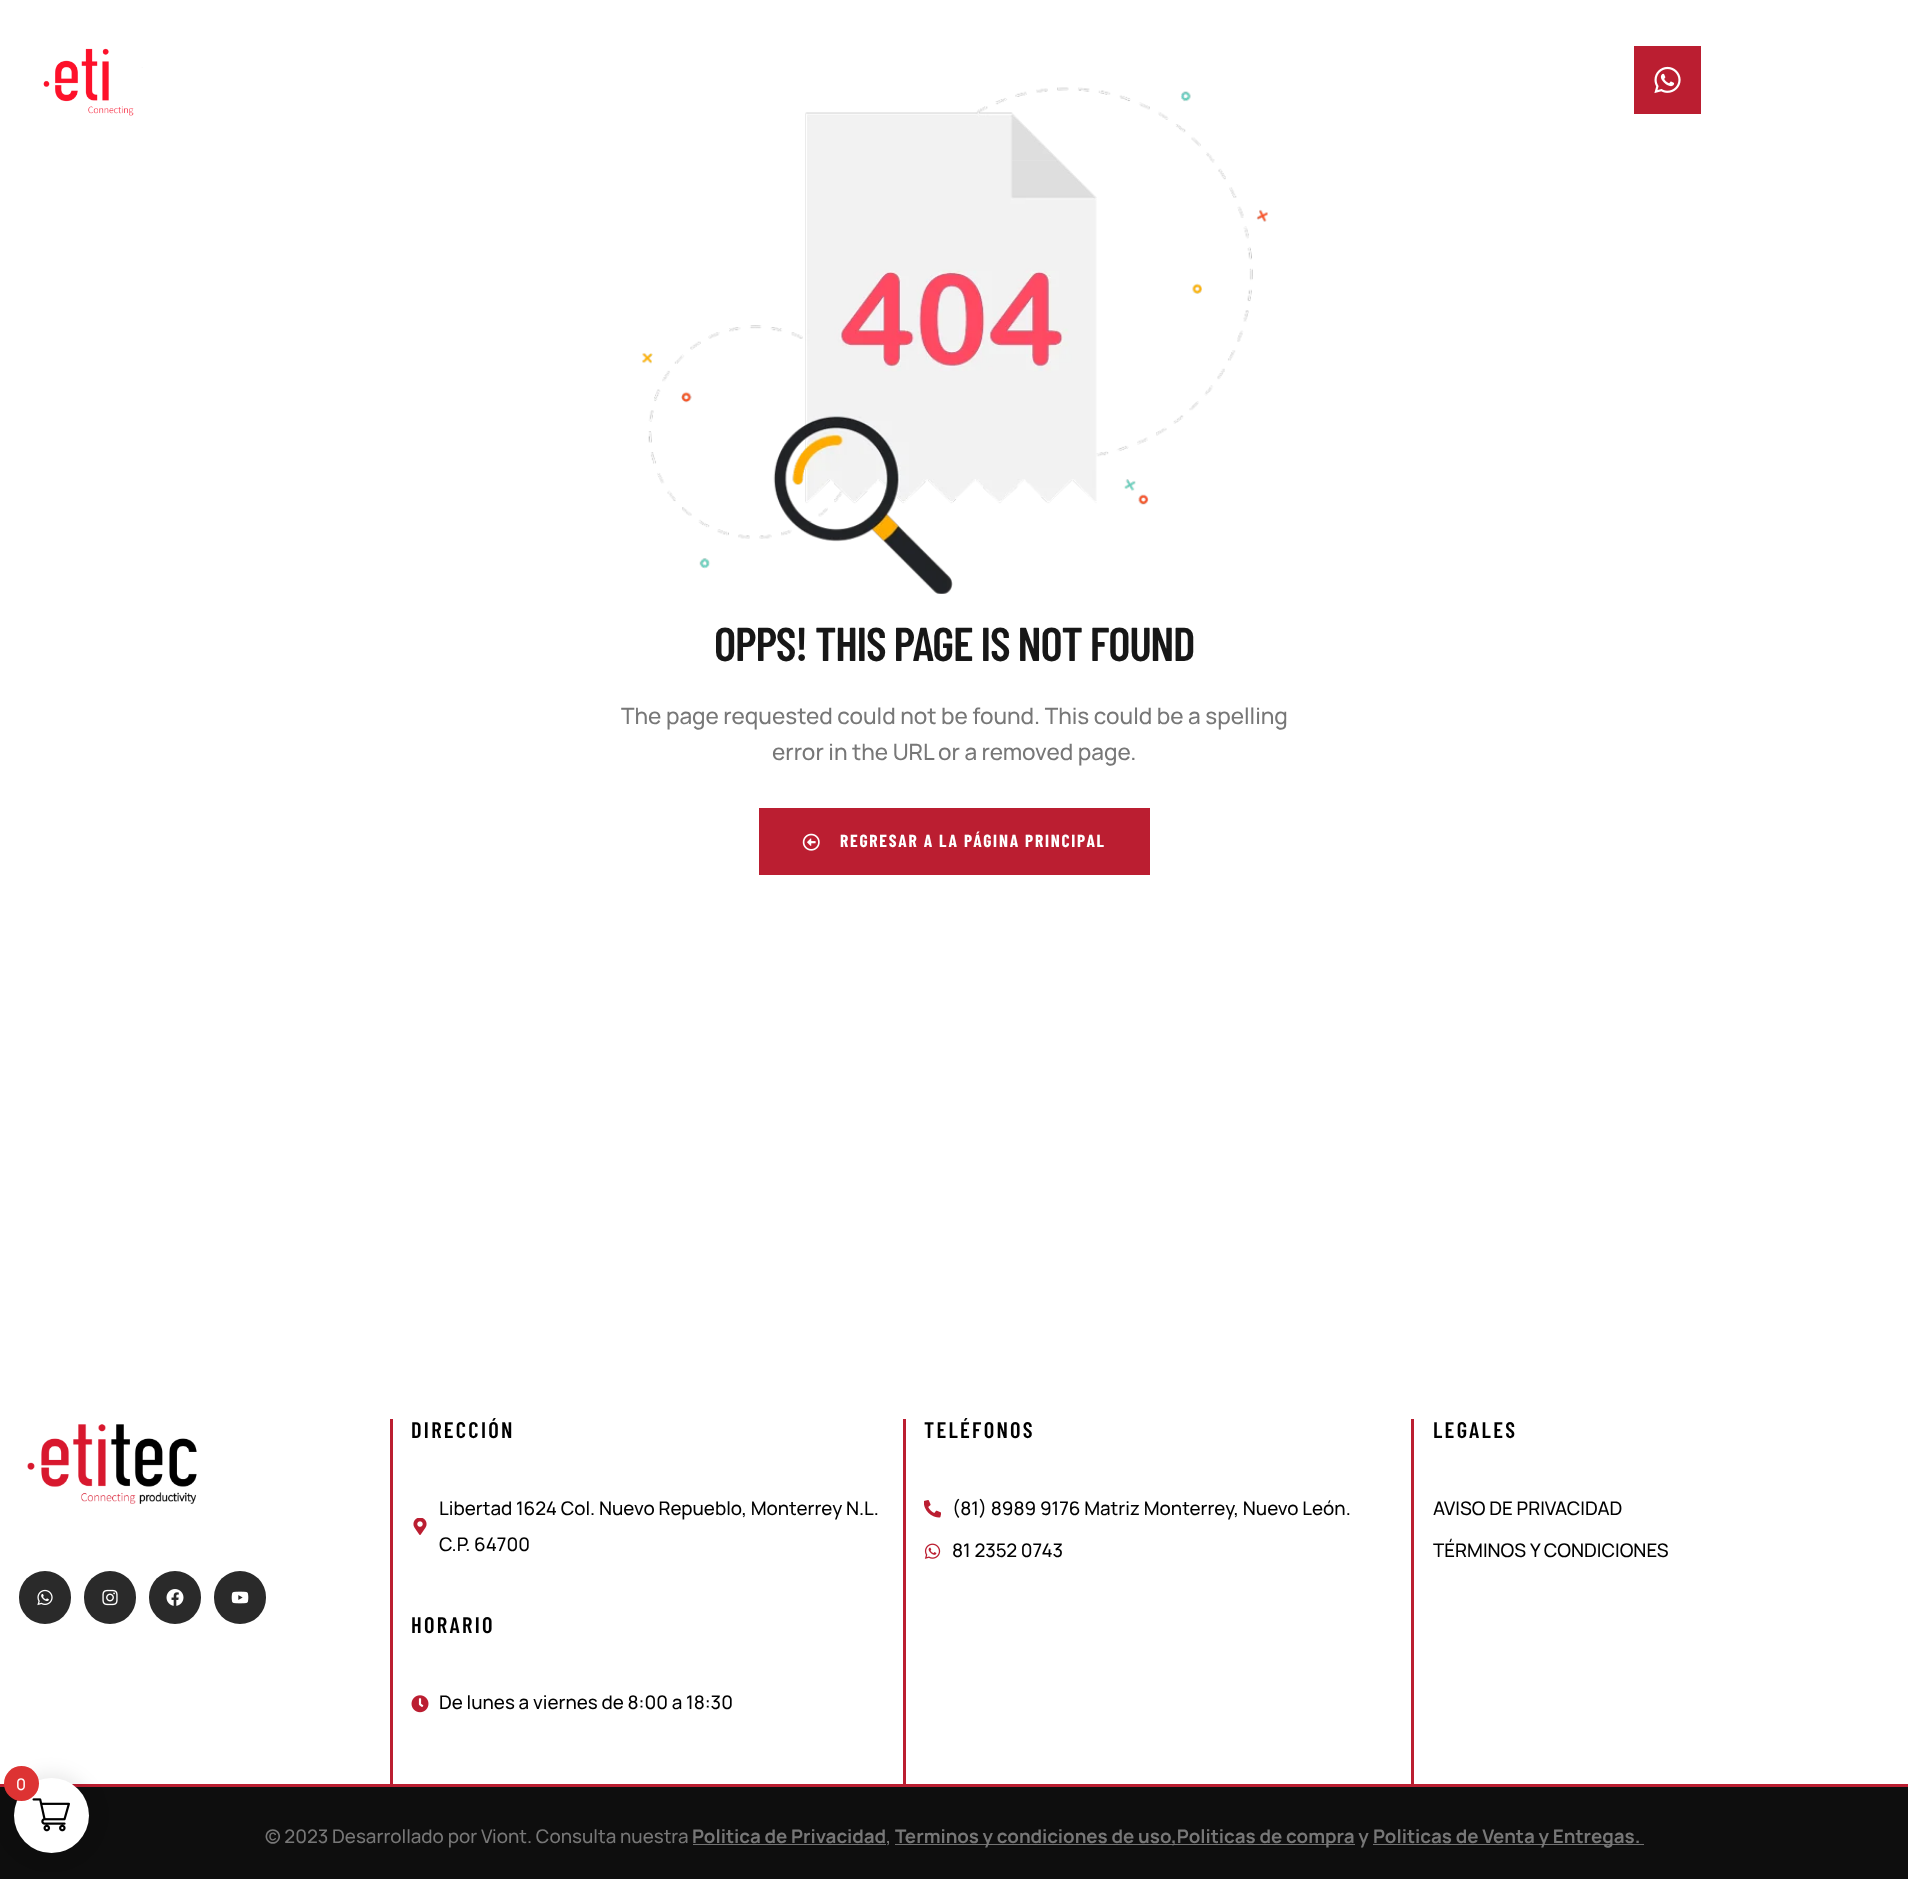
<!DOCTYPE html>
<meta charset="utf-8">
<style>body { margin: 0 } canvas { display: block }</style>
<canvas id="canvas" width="1908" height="1879"></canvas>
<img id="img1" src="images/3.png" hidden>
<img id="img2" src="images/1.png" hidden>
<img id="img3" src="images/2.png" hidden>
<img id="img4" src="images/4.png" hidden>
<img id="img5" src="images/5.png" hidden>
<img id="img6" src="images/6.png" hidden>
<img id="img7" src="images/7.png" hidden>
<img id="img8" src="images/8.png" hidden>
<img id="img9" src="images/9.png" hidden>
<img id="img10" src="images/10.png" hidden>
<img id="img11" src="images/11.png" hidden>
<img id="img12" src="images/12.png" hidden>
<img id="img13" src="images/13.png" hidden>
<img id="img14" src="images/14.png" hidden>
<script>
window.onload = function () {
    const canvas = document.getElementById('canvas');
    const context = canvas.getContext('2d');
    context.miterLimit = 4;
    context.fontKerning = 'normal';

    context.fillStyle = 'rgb(255, 255, 255)';
    context.fillRect(0, 0, 1908, 1879);
    context.drawImage(document.getElementById('img1'), 642, 87, 626, 507);
    context.fillStyle = 'rgba(255, 255, 255, 0.1)';
    context.fillRect(1012, 160, 46, 1);
    context.drawImage(document.getElementById('img2'), 43, 48, 100, 68);
    context.fillStyle = 'rgb(187, 30, 49)';
    context.fillRect(1634, 46, 67, 68);
    context.drawImage(document.getElementById('img3'), 1654, 66, 27, 28);
    context.fillRect(759, 808, 391, 67);
    context.drawImage(document.getElementById('img4'), 802, 833, 18, 18);
    context.fillStyle = 'rgb(14, 14, 14)';
    context.fillRect(0, 1787, 1908, 92);
    context.fillStyle = 'rgb(187, 30, 49)';
    context.fillRect(0, 1784, 1908, 3);
    context.fillStyle = 'rgba(0, 0, 0, 0.1)';
    context.filter = 'blur(9.5px)';
    context.beginPath();
    context.roundRect(11, 1775, 80, 80, 40);
    context.fill();
    context.filter = 'none';
    context.fillStyle = 'rgb(255, 255, 255)';
    context.beginPath();
    context.arc(51.5, 1815.5, 37.5, 0, 2 * Math.PI);
    context.fill();
    context.drawImage(document.getElementById('img5'), 32, 1798, 38, 34);
    context.fillStyle = 'rgb(221, 51, 51)';
    context.beginPath();
    context.arc(21.5, 1783.5, 17.5, 0, 2 * Math.PI);
    context.fill();
    context.drawImage(document.getElementById('img6'), 27, 1424, 170, 80);
    context.fillStyle = 'rgb(42, 42, 42)';
    context.beginPath();
    context.roundRect(19, 1571, 52, 53, 26);
    context.fill();
    context.drawImage(document.getElementById('img7'), 37, 1589, 16, 17);
    context.beginPath();
    context.roundRect(84, 1571, 52, 53, 26);
    context.fill();
    context.drawImage(document.getElementById('img8'), 102, 1589, 16, 17);
    context.beginPath();
    context.roundRect(149, 1571, 52, 53, 26);
    context.fill();
    context.drawImage(document.getElementById('img9'), 166, 1589, 18, 17);
    context.beginPath();
    context.roundRect(214, 1571, 52, 53, 26);
    context.fill();
    context.drawImage(document.getElementById('img10'), 231, 1591, 18, 13);
    context.fillStyle = 'rgb(187, 30, 49)';
    context.fillRect(390, 1419, 3, 365);
    context.drawImage(document.getElementById('img11'), 413, 1518, 14, 17);
    context.drawImage(document.getElementById('img12'), 411, 1695, 18, 18);
    context.fillRect(903, 1419, 3, 365);
    context.drawImage(document.getElementById('img13'), 924, 1500, 17, 18);
    context.drawImage(document.getElementById('img14'), 924, 1543, 17, 16);
    context.fillRect(1411, 1419, 3, 365);
    context.fillStyle = 'rgb(114, 114, 114)';
    context.fillRect(693, 1844, 193, 1);
    context.fillRect(895, 1844, 460, 1);
    context.fillRect(1373, 1844, 271, 1);
    context.letterSpacing = '-1.25px';
    context.font = '600 47.5px Barlow Condensed';
    context.fillStyle = 'rgb(23, 23, 23)';
    context.fillText('OPPS! THIS PAGE IS NOT FOUND', 714, 661);
    context.letterSpacing = '0px';
    context.font = '500 22.5px Manrope';
    context.fillStyle = 'rgb(119, 119, 119)';
    context.fillText('The page requested could not be found. This could be a spelling', 621, 724);
    context.fillText('error in the URL or a removed page.', 772, 760);
    context.letterSpacing = '1.75px';
    context.font = 'bold 17.5px Barlow Condensed';
    context.fillStyle = 'rgb(255, 255, 255)';
    context.fillText('REGRESAR A LA PÁGINA PRINCIPAL', 840, 847);
    context.letterSpacing = '0px';
    context.font = '500 16px Manrope';
    context.fillText('0', 16, 1790);
    context.letterSpacing = '2.25px';
    context.font = '600 22.5px Barlow Condensed';
    context.fillStyle = 'rgb(0, 0, 0)';
    context.fillText('DIRECCIÓN', 411, 1438);
    context.letterSpacing = '0px';
    context.font = '500 18.75px Manrope';
    context.fillText('Libertad 1624 Col. Nuevo Repueblo, Monterrey N.L.', 439, 1515);
    context.fillText('C.P. 64700', 439, 1551);
    context.letterSpacing = '2.25px';
    context.font = '600 22.5px Barlow Condensed';
    context.fillText('HORARIO', 411, 1633);
    context.letterSpacing = '0px';
    context.font = '500 18.75px Manrope';
    context.fillText('De lunes a viernes de 8:00 a 18:30', 439, 1709);
    context.letterSpacing = '2.25px';
    context.font = '600 22.5px Barlow Condensed';
    context.fillText('TELÉFONOS', 924, 1438);
    context.letterSpacing = '0px';
    context.font = '500 18.75px Manrope';
    context.fillText('(81) 8989 9176 Matriz Monterrey, Nuevo León.', 952, 1515);
    context.fillText('81 2352 0743', 952, 1557);
    context.letterSpacing = '2.25px';
    context.font = '600 22.5px Barlow Condensed';
    context.fillText('LEGALES', 1433, 1438);
    context.letterSpacing = '0px';
    context.font = '500 18.75px Manrope';
    context.fillText('AVISO DE PRIVACIDAD', 1433, 1515);
    context.fillText('TÉRMINOS Y CONDICIONES', 1433, 1557);
    context.fillStyle = 'rgb(119, 119, 119)';
    context.fillText('© 2023 Desarrollado por Viont. Consulta nuestra', 265, 1843);
    context.font = 'bold 18.75px Manrope';
    context.fillText('Politica de Privacidad', 692, 1843);
    context.font = '500 18.75px Manrope';
    context.fillText(',', 886, 1843);
    context.font = 'bold 18.75px Manrope';
    context.fillText('Terminos y condiciones de uso,Politicas de compra y', 895, 1843);
    context.fillText('Politicas de Venta y Entregas.', 1373, 1843);
};
</script>
